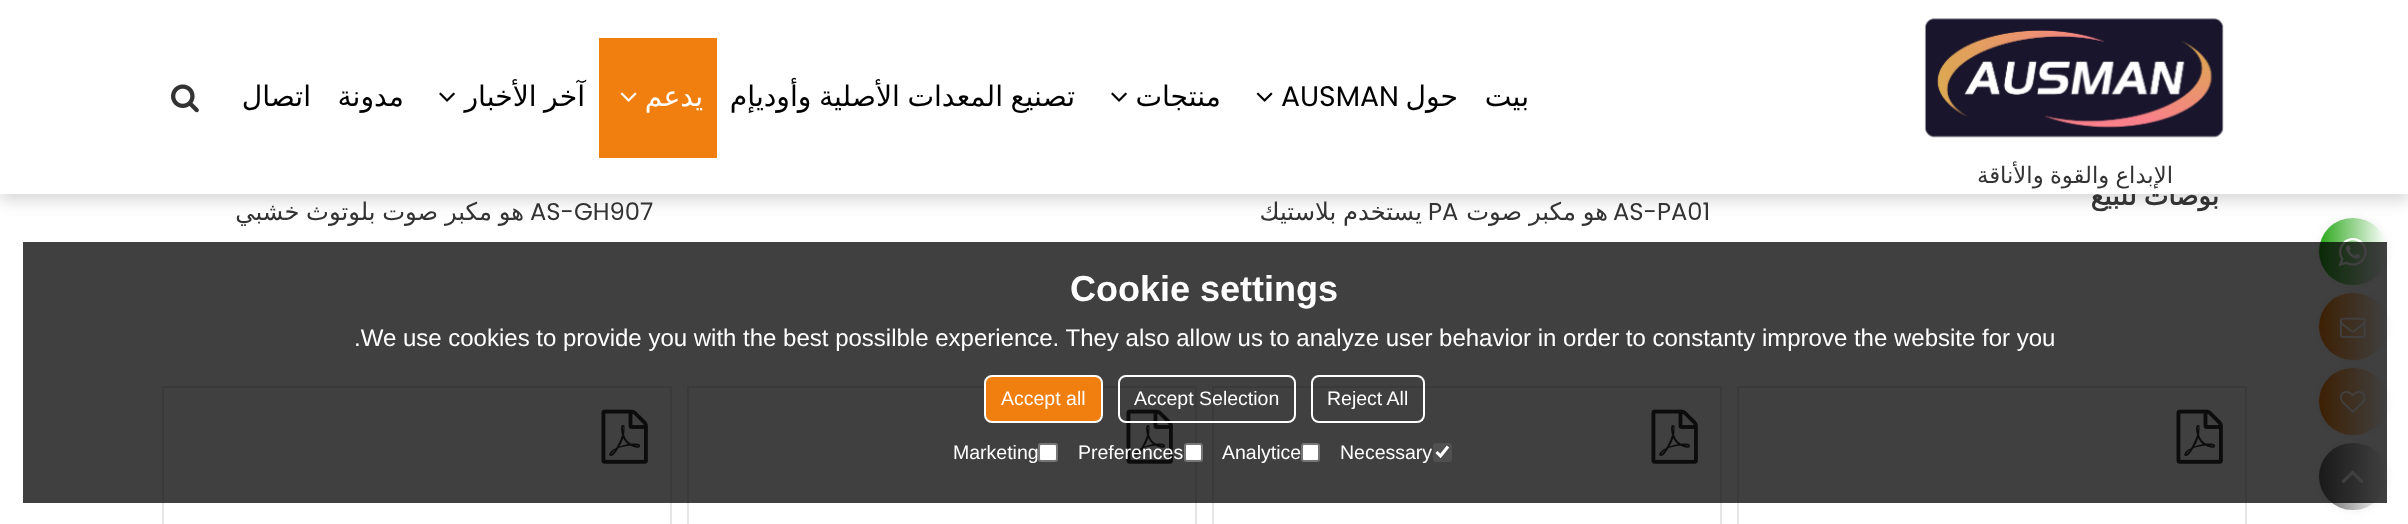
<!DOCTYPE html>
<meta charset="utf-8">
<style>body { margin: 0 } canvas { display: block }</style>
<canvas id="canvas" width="2408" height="524"></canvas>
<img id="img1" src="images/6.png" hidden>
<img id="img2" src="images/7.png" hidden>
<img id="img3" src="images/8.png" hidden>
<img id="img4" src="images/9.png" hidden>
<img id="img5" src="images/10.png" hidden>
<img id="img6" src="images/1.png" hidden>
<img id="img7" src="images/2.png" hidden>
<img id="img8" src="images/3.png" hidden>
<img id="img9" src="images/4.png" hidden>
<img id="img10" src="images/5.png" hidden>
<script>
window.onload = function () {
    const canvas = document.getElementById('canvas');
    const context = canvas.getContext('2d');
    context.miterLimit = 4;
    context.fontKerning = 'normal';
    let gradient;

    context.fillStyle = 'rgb(255, 255, 255)';
    context.fillRect(0, 0, 2408, 524);
    context.fillStyle = 'rgba(0, 0, 0, 0.15)';
    context.filter = 'blur(7.5px)';
    context.beginPath();
    context.rect(0, 8, 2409, 193);
    context.fill();
    context.filter = 'none';
    context.strokeStyle = 'rgb(230, 230, 230)';
    context.lineWidth = 2;
    context.strokeRect(163, 387, 508, 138);
    context.drawImage(document.getElementById('img1'), 601, 409, 47, 55);
    context.strokeRect(688, 387, 508, 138);
    context.drawImage(document.getElementById('img1'), 1126, 409, 47, 55);
    context.strokeRect(1213, 387, 508, 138);
    context.drawImage(document.getElementById('img1'), 1651, 409, 47, 55);
    context.strokeRect(1738, 387, 508, 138);
    context.drawImage(document.getElementById('img1'), 2176, 409, 47, 55);
    context.fillStyle = 'rgb(238, 238, 238)';
    context.filter = 'blur(4px)';
    context.beginPath();
    context.roundRect(2319, 218, 68, 67, 33.5);
    context.fill();
    context.filter = 'none';
    gradient = context.createLinearGradient(2319, 251, 2387, 251);
    gradient.addColorStop(0, 'rgb(41, 166, 26)');
    gradient.addColorStop(1, 'rgb(255, 255, 255)');
    context.fillStyle = gradient;
    context.beginPath();
    context.roundRect(2319, 218, 68, 67, 33.5);
    context.fill();
    context.drawImage(document.getElementById('img2'), 2338, 238, 29, 29);
    context.fillStyle = 'rgb(238, 238, 238)';
    context.filter = 'blur(4px)';
    context.beginPath();
    context.roundRect(2319, 293, 68, 67, 33.5);
    context.fill();
    context.filter = 'none';
    gradient = context.createLinearGradient(2319, 326, 2387, 326);
    gradient.addColorStop(0, 'rgb(241, 127, 15)');
    gradient.addColorStop(1, 'rgb(255, 255, 255)');
    context.fillStyle = gradient;
    context.beginPath();
    context.roundRect(2319, 293, 68, 67, 33.5);
    context.fill();
    context.drawImage(document.getElementById('img3'), 2340, 317, 26, 21);
    context.fillStyle = 'rgb(238, 238, 238)';
    context.filter = 'blur(4px)';
    context.beginPath();
    context.roundRect(2319, 368, 68, 67, 33.5);
    context.fill();
    context.filter = 'none';
    gradient = context.createLinearGradient(2319, 401, 2387, 401);
    gradient.addColorStop(0, 'rgb(241, 127, 15)');
    gradient.addColorStop(1, 'rgb(255, 255, 255)');
    context.fillStyle = gradient;
    context.beginPath();
    context.roundRect(2319, 368, 68, 67, 33.5);
    context.fill();
    context.drawImage(document.getElementById('img4'), 2340, 391, 26, 22);
    context.fillStyle = 'rgb(238, 238, 238)';
    context.filter = 'blur(4px)';
    context.beginPath();
    context.roundRect(2319, 443, 68, 67, 33.5);
    context.fill();
    context.filter = 'none';
    gradient = context.createLinearGradient(2319, 476, 2387, 476);
    gradient.addColorStop(0, 'rgb(102, 102, 102)');
    gradient.addColorStop(1, 'rgb(255, 255, 255)');
    context.fillStyle = gradient;
    context.beginPath();
    context.roundRect(2319, 443, 68, 67, 33.5);
    context.fill();
    context.drawImage(document.getElementById('img5'), 2341, 470, 23, 14);
    context.fillStyle = 'rgba(0, 0, 0, 0.75)';
    context.fillRect(23, 242, 2364, 261);
    context.fillStyle = 'rgb(241, 127, 15)';
    context.beginPath();
    context.roundRect(985, 376, 117, 46, 7);
    context.fill();
    context.strokeStyle = 'rgb(255, 255, 255)';
    context.stroke();
    context.beginPath();
    context.roundRect(1119, 376, 176, 46, 7);
    context.stroke();
    context.beginPath();
    context.roundRect(1312, 376, 112, 46, 7);
    context.stroke();
    context.fillStyle = 'rgb(255, 255, 255)';
    context.beginPath();
    context.roundRect(1039, 444, 18, 17, 2);
    context.fill();
    context.strokeStyle = 'rgb(118, 118, 118)';
    context.stroke();
    context.beginPath();
    context.roundRect(1185, 444, 17, 17, 2);
    context.fill();
    context.stroke();
    context.beginPath();
    context.roundRect(1302, 444, 17, 17, 2);
    context.fill();
    context.stroke();
    context.fillStyle = 'rgb(80, 80, 80)';
    context.beginPath();
    context.roundRect(1433, 443, 19, 19, 3);
    context.fill();
    context.beginPath();
    context.moveTo(1436.5, 452);
    context.lineTo(1440.5, 456);
    context.lineTo(1448, 446.5);
    context.strokeStyle = 'rgb(255, 255, 255)';
    context.lineWidth = 3.1;
    context.stroke();
    context.wordSpacing = '-1px';
    context.direction = 'rtl';
    context.font = '24.25px DejaVu Sans';
    context.fillStyle = 'rgb(51, 51, 51)';
    context.fillText('هو مكبر صوت بلوتوث خشبي', 524, 220);
    context.wordSpacing = '0px';
    context.direction = 'ltr';
    context.font = '24.25px Poppins';
    context.fillText('AS-GH907', 530, 220);
    context.wordSpacing = '-1px';
    context.direction = 'rtl';
    context.font = '24.25px DejaVu Sans';
    context.fillText('يستخدم بلاستيك', 1422, 220);
    context.wordSpacing = '0px';
    context.direction = 'ltr';
    context.font = '24.25px Poppins';
    context.fillText('PA', 1428, 220);
    context.wordSpacing = '-1px';
    context.direction = 'rtl';
    context.font = '24.25px DejaVu Sans';
    context.fillText('هو مكبر صوت', 1608, 220);
    context.wordSpacing = '0px';
    context.direction = 'ltr';
    context.font = '24.25px Poppins';
    context.fillText('AS-PA01', 1613, 220);
    context.wordSpacing = '-1px';
    context.direction = 'rtl';
    context.font = 'bold 26px DejaVu Sans';
    context.fillText('بوصات للبيع', 2219, 205);
    context.fillStyle = 'rgb(255, 255, 255)';
    context.fillRect(0, 0, 2408, 194);
    context.drawImage(document.getElementById('img6'), 171, 84, 28, 29);
    context.wordSpacing = '0px';
    context.font = '28.25px DejaVu Sans';
    context.fillStyle = 'rgb(0, 0, 0)';
    context.fillText('اتصال', 311, 106);
    context.fillText('مدونة', 404, 106);
    context.drawImage(document.getElementById('img7'), 439, 92, 16, 10);
    context.wordSpacing = '-1.5px';
    context.fillText('آخر الأخبار', 585, 106);
    context.fillStyle = 'rgb(241, 127, 15)';
    context.fillRect(599, 38, 118, 120);
    context.drawImage(document.getElementById('img8'), 620, 92, 17, 10);
    context.wordSpacing = '0px';
    context.fillStyle = 'rgb(255, 255, 255)';
    context.fillText('يدعم', 703, 106);
    context.wordSpacing = '-1.5px';
    context.fillStyle = 'rgb(0, 0, 0)';
    context.fillText('تصنيع المعدات الأصلية وأوديإم', 1075, 106);
    context.drawImage(document.getElementById('img7'), 1111, 92, 16, 10);
    context.wordSpacing = '0px';
    context.fillText('منتجات', 1221, 106);
    context.drawImage(document.getElementById('img9'), 1256, 92, 17, 10);
    context.fillText('حول', 1458, 106);
    context.direction = 'ltr';
    context.font = '28.25px Poppins';
    context.fillText('AUSMAN', 1281, 106);
    context.direction = 'rtl';
    context.font = '28.25px DejaVu Sans';
    context.fillText('بيت', 1529, 106);
    context.drawImage(document.getElementById('img10'), 1924, 18, 300, 120);
    context.wordSpacing = '-1px';
    context.font = '22.75px DejaVu Sans';
    context.fillStyle = 'rgb(51, 51, 51)';
    context.fillText('الإبداع والقوة والأناقة', 2173, 183);
    context.wordSpacing = '0px';
    context.direction = 'ltr';
    context.font = 'bold 36px Liberation Sans';
    context.fillStyle = 'rgb(255, 255, 255)';
    context.fillText('Cookie settings', 1070, 301);
    context.font = '24px Liberation Sans';
    context.fillText('.We use cookies to provide you with the best possilble experience. They also allow us to analyze user behavior in order to constanty improve the website for you', 354, 346);
    context.font = '19.5px Liberation Sans';
    context.fillText('Accept all', 1001, 405);
    context.fillText('Accept Selection', 1134, 405);
    context.fillText('Reject All', 1327, 405);
    context.fillText('Marketing', 953, 459);
    context.fillText('Preferences', 1078, 459);
    context.fillText('Analytice', 1222, 459);
    context.fillText('Necessary', 1340, 459);
};
</script>
